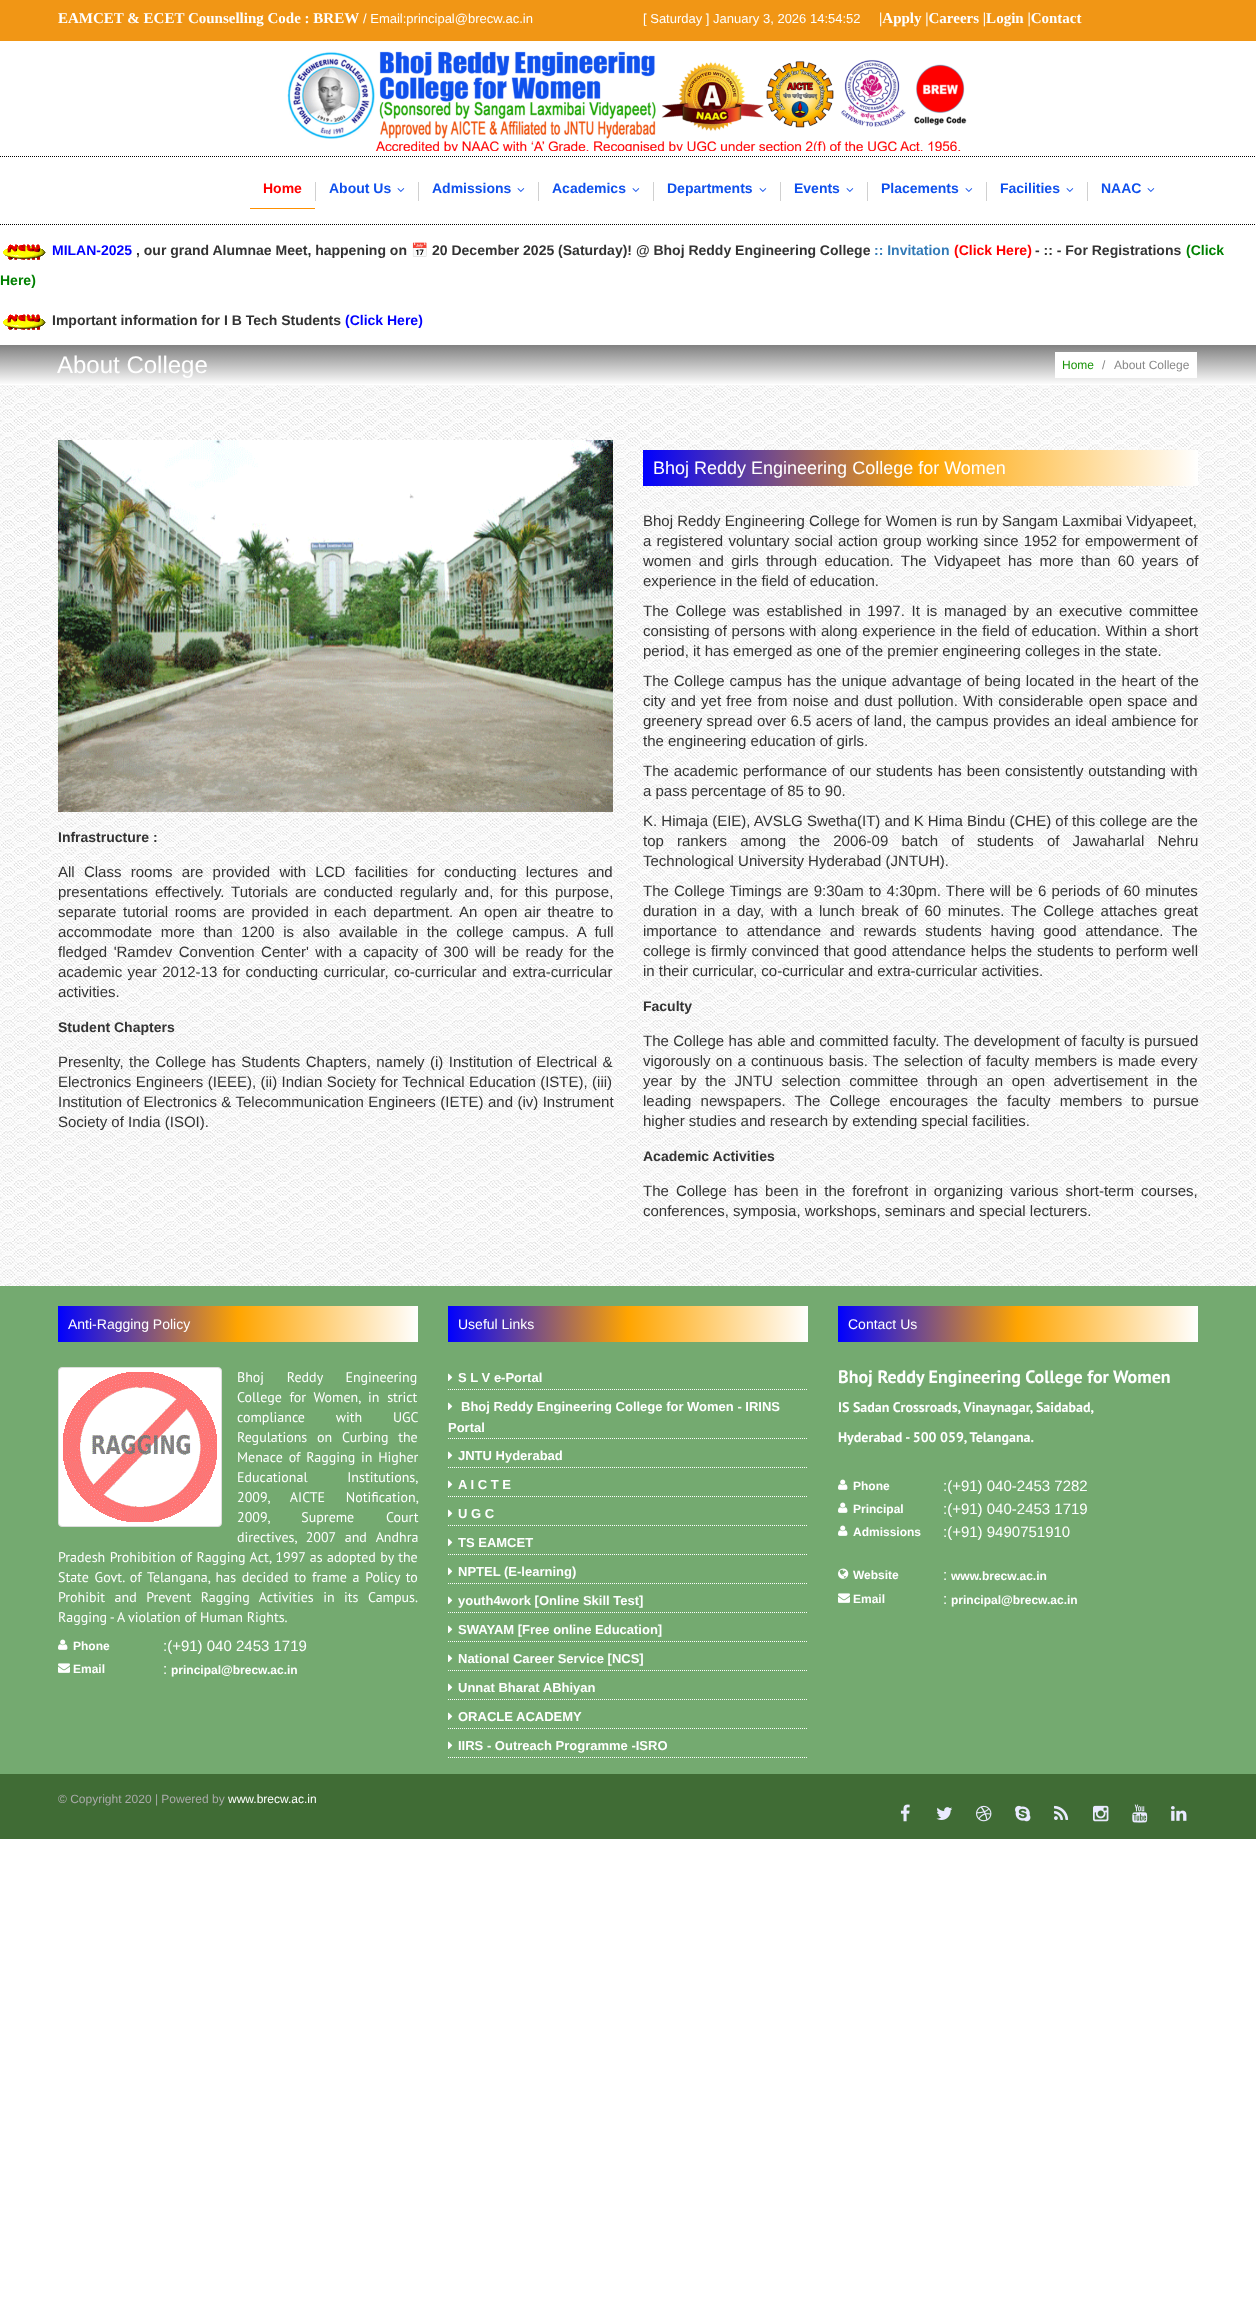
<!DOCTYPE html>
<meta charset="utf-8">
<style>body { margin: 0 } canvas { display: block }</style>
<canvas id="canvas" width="1256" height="2306"></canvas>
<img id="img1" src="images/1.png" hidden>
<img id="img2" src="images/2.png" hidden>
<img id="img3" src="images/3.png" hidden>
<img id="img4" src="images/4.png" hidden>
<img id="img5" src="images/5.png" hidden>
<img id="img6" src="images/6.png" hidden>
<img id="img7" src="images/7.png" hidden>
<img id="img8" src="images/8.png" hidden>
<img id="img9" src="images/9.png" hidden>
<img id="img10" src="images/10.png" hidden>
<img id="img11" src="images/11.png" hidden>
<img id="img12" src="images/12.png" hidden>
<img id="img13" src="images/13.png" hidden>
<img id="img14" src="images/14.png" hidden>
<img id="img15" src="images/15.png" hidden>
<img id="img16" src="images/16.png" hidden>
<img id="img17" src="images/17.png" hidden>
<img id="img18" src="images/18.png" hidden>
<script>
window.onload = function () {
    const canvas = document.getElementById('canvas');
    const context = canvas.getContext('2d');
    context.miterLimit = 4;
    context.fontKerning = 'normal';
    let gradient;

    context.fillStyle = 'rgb(255, 255, 255)';
    context.fillRect(0, 0, 1256, 2306);
    context.fillStyle = 'rgb(241, 150, 21)';
    context.fillRect(0, 0, 1256, 41);
    context.beginPath();
    context.moveTo(0, 156.5);
    context.lineTo(1256, 156.5);
    context.strokeStyle = 'rgb(0, 0, 0)';
    context.setLineDash([1, 1]);
    context.stroke();
    context.drawImage(document.getElementById('img1'), 287, 51, 680, 100);
    context.beginPath();
    context.moveTo(0, 224.5);
    context.lineTo(1256, 224.5);
    context.stroke();
    context.fillStyle = 'rgb(255, 144, 0)';
    context.fillRect(250, 208, 65, 1);
    context.fillStyle = 'rgb(208, 208, 208)';
    context.fillRect(315, 182, 1, 19);
    context.drawImage(document.getElementById('img2'), 397, 188, 8, 4);
    context.fillRect(418, 182, 1, 19);
    context.drawImage(document.getElementById('img2'), 517, 188, 8, 4);
    context.fillRect(538, 182, 1, 19);
    context.drawImage(document.getElementById('img2'), 632, 188, 8, 4);
    context.fillRect(653, 182, 1, 19);
    context.drawImage(document.getElementById('img2'), 759, 188, 8, 4);
    context.fillRect(780, 182, 1, 19);
    context.drawImage(document.getElementById('img2'), 846, 188, 8, 4);
    context.fillRect(867, 182, 1, 19);
    context.drawImage(document.getElementById('img2'), 965, 188, 8, 4);
    context.fillRect(986, 182, 1, 19);
    context.drawImage(document.getElementById('img2'), 1066, 188, 8, 4);
    context.fillRect(1087, 182, 1, 19);
    context.drawImage(document.getElementById('img2'), 1147, 188, 8, 4);
    context.drawImage(document.getElementById('img3'), 3, 244, 43, 16);
    context.drawImage(document.getElementById('img3'), 3, 314, 43, 16);
    gradient = context.createLinearGradient(628, 345, 628, 385);
    gradient.addColorStop(0, 'rgb(128, 128, 128)');
    gradient.addColorStop(1, 'rgb(255, 255, 255)');
    context.fillStyle = gradient;
    context.fillRect(0, 345, 1256, 39);
    context.fillStyle = 'rgb(255, 255, 255)';
    context.fillRect(1055, 352, 142, 26);
    context.drawImage(document.getElementById('img4'), 0, 385, 1256, 901);
    context.drawImage(document.getElementById('img5'), 58, 440, 555, 372);
    gradient = context.createLinearGradient(643, 468, 1198, 468);
    gradient.addColorStop(0, 'rgb(0, 0, 255)');
    gradient.addColorStop(0.5, 'rgb(255, 165, 0)');
    gradient.addColorStop(1, 'rgb(255, 255, 255)');
    context.fillStyle = gradient;
    context.fillRect(643, 450, 555, 36);
    context.fillStyle = 'rgb(116, 170, 112)';
    context.fillRect(0, 1286, 1256, 488);
    gradient = context.createLinearGradient(58, 1324, 418, 1324);
    gradient.addColorStop(0, 'rgb(0, 0, 255)');
    gradient.addColorStop(0.5, 'rgb(255, 165, 0)');
    gradient.addColorStop(1, 'rgb(255, 255, 255)');
    context.fillStyle = gradient;
    context.fillRect(58, 1306, 360, 36);
    context.fillStyle = 'rgb(255, 255, 255)';
    context.beginPath();
    context.roundRect(58.5, 1367.5, 163, 159, 3.5);
    context.fill();
    context.strokeStyle = 'rgb(221, 221, 221)';
    context.setLineDash([]);
    context.stroke();
    context.drawImage(document.getElementById('img6'), 63, 1372, 154, 150);
    context.drawImage(document.getElementById('img7'), 58, 1639, 10, 11);
    context.drawImage(document.getElementById('img8'), 58, 1663, 12, 10);
    gradient = context.createLinearGradient(448, 1324, 808, 1324);
    gradient.addColorStop(0, 'rgb(0, 0, 255)');
    gradient.addColorStop(0.5, 'rgb(255, 165, 0)');
    gradient.addColorStop(1, 'rgb(255, 255, 255)');
    context.fillStyle = gradient;
    context.fillRect(448, 1306, 360, 36);
    context.drawImage(document.getElementById('img9'), 448, 1373, 5, 8);
    context.beginPath();
    context.moveTo(448, 1389.5);
    context.lineTo(808, 1389.5);
    context.strokeStyle = 'rgb(255, 255, 255)';
    context.setLineDash([1, 1]);
    context.stroke();
    context.beginPath();
    context.moveTo(448, 1438.5);
    context.lineTo(808, 1438.5);
    context.stroke();
    context.drawImage(document.getElementById('img9'), 448, 1402, 5, 8);
    context.drawImage(document.getElementById('img9'), 448, 1451, 5, 8);
    context.beginPath();
    context.moveTo(448, 1467.5);
    context.lineTo(808, 1467.5);
    context.stroke();
    context.drawImage(document.getElementById('img9'), 448, 1480, 5, 8);
    context.beginPath();
    context.moveTo(448, 1496.5);
    context.lineTo(808, 1496.5);
    context.stroke();
    context.drawImage(document.getElementById('img9'), 448, 1509, 5, 8);
    context.beginPath();
    context.moveTo(448, 1525.5);
    context.lineTo(808, 1525.5);
    context.stroke();
    context.drawImage(document.getElementById('img9'), 448, 1538, 5, 8);
    context.beginPath();
    context.moveTo(448, 1554.5);
    context.lineTo(808, 1554.5);
    context.stroke();
    context.drawImage(document.getElementById('img9'), 448, 1567, 5, 8);
    context.beginPath();
    context.moveTo(448, 1583.5);
    context.lineTo(808, 1583.5);
    context.stroke();
    context.drawImage(document.getElementById('img9'), 448, 1596, 5, 8);
    context.beginPath();
    context.moveTo(448, 1612.5);
    context.lineTo(808, 1612.5);
    context.stroke();
    context.drawImage(document.getElementById('img9'), 448, 1625, 5, 8);
    context.beginPath();
    context.moveTo(448, 1641.5);
    context.lineTo(808, 1641.5);
    context.stroke();
    context.drawImage(document.getElementById('img9'), 448, 1654, 5, 8);
    context.beginPath();
    context.moveTo(448, 1670.5);
    context.lineTo(808, 1670.5);
    context.stroke();
    context.drawImage(document.getElementById('img9'), 448, 1683, 5, 8);
    context.beginPath();
    context.moveTo(448, 1699.5);
    context.lineTo(808, 1699.5);
    context.stroke();
    context.drawImage(document.getElementById('img9'), 448, 1712, 5, 8);
    context.beginPath();
    context.moveTo(448, 1728.5);
    context.lineTo(808, 1728.5);
    context.stroke();
    context.drawImage(document.getElementById('img9'), 448, 1741, 5, 8);
    context.beginPath();
    context.moveTo(448, 1757.5);
    context.lineTo(808, 1757.5);
    context.stroke();
    gradient = context.createLinearGradient(838, 1324, 1198, 1324);
    gradient.addColorStop(0, 'rgb(0, 0, 255)');
    gradient.addColorStop(0.5, 'rgb(255, 165, 0)');
    gradient.addColorStop(1, 'rgb(255, 255, 255)');
    context.fillStyle = gradient;
    context.fillRect(838, 1306, 360, 36);
    context.drawImage(document.getElementById('img7'), 838, 1479, 10, 11);
    context.drawImage(document.getElementById('img7'), 838, 1502, 10, 11);
    context.drawImage(document.getElementById('img7'), 838, 1525, 10, 11);
    context.drawImage(document.getElementById('img10'), 838, 1568, 11, 11);
    context.drawImage(document.getElementById('img8'), 838, 1593, 12, 10);
    context.fillStyle = 'rgb(64, 108, 53)';
    context.fillRect(0, 1774, 1256, 65);
    context.drawImage(document.getElementById('img11'), 900, 1804, 10, 18);
    context.drawImage(document.getElementById('img12'), 936, 1807, 17, 13);
    context.drawImage(document.getElementById('img13'), 976, 1805, 16, 17);
    context.drawImage(document.getElementById('img14'), 1015, 1805, 16, 17);
    context.drawImage(document.getElementById('img15'), 1054, 1805, 15, 15);
    context.drawImage(document.getElementById('img16'), 1093, 1805, 16, 17);
    context.drawImage(document.getElementById('img17'), 1132, 1804, 16, 19);
    context.drawImage(document.getElementById('img18'), 1171, 1806, 16, 15);
    context.font = 'bold 15px Liberation Serif';
    context.fillStyle = 'rgb(255, 255, 255)';
    context.fillText('EAMCET & ECET Counselling Code : BREW', 58, 23);
    context.font = '13px Liberation Sans';
    context.fillText('/ Email:principal@brecw.ac.in', 363, 23);
    context.fillText('[ Saturday ] January 3, 2026 14:54:52', 643, 23);
    context.font = 'bold 15px Liberation Serif';
    context.fillText('|Apply |Careers |Login |Contact', 879, 23);
    context.font = 'bold 14px Liberation Sans';
    context.fillStyle = 'rgb(255, 0, 0)';
    context.fillText('Home', 263, 193);
    context.fillStyle = 'rgb(15, 80, 236)';
    context.fillText('About Us', 329, 193);
    context.fillText('Admissions', 432, 193);
    context.fillText('Academics', 552, 193);
    context.fillText('Departments', 667, 193);
    context.fillText('Events', 794, 193);
    context.fillText('Placements', 881, 193);
    context.fillText('Facilities', 1000, 193);
    context.fillText('NAAC', 1101, 193);
    context.fillStyle = 'rgb(0, 0, 255)';
    context.fillText('MILAN-2025', 52, 255);
    context.fillStyle = 'rgb(51, 51, 51)';
    context.fillText(', our grand Alumnae Meet, happening on', 136, 255);
    context.font = 'bold 14px Noto Color Emoji';
    context.fillText('📅', 411, 255);
    context.font = 'bold 14px Liberation Sans';
    context.fillText('20 December 2025 (Saturday)! @ Bhoj Reddy Engineering College', 432, 255);
    context.fillStyle = 'rgb(51, 122, 183)';
    context.fillText(':: Invitation', 874, 255);
    context.fillStyle = 'rgb(255, 0, 0)';
    context.fillText('(Click Here)', 954, 255);
    context.fillStyle = 'rgb(51, 51, 51)';
    context.fillText('- :: - For Registrations', 1035, 255);
    context.fillStyle = 'rgb(0, 128, 0)';
    context.fillText('(Click', 1186, 255);
    context.fillText('Here)', 0, 285);
    context.fillStyle = 'rgb(51, 51, 51)';
    context.fillText('Important information for I B Tech Students', 52, 325);
    context.fillStyle = 'rgb(0, 0, 255)';
    context.fillText('(Click Here)', 345, 325);
    context.font = '24px Liberation Sans';
    context.fillStyle = 'rgb(255, 255, 255)';
    context.fillText('About College', 57, 373);
    context.font = '12px Liberation Sans';
    context.fillStyle = 'rgb(26, 149, 10)';
    context.fillText('Home', 1062, 369);
    context.fillStyle = 'rgb(136, 136, 136)';
    context.fillText('/', 1102, 369);
    context.fillText('About College', 1114, 369);
    context.font = 'bold 14px Liberation Sans';
    context.fillStyle = 'rgb(51, 51, 51)';
    context.fillText('Infrastructure :', 58, 842);
    context.wordSpacing = '5.1px';
    context.font = '15px Liberation Sans';
    context.fillText('All Class rooms are provided with LCD facilities for conducting lectures and', 58, 877);
    context.wordSpacing = '2.75px';
    context.fillText('presentations effectively. Tutorials are conducted regularly and, for this purpose,', 58, 897);
    context.wordSpacing = '2.5px';
    context.fillText('separate tutorial rooms are provided in each department. An open air theatre to', 58, 917);
    context.wordSpacing = '4.4px';
    context.fillText('accommodate more than 1200 is also available in the college campus. A full', 58, 937);
    context.wordSpacing = '2.25px';
    context.fillText('fledged \'Ramdev Convention Center\' with a capacity of 300 will be ready for the', 58, 957);
    context.wordSpacing = '1.25px';
    context.fillText('academic year 2012-13 for conducting curricular, co-curricular and extra-curricular', 58, 977);
    context.wordSpacing = '0px';
    context.fillText('activities.', 58, 997);
    context.font = 'bold 14px Liberation Sans';
    context.fillText('Student Chapters', 58, 1032);
    context.wordSpacing = '1.25px';
    context.font = '15px Liberation Sans';
    context.fillText('Presenlty, the College has Students Chapters, namely (i) Institution of Electrical &', 58, 1067);
    context.wordSpacing = '0.25px';
    context.fillText('Electronics Engineers (IEEE), (ii) Indian Society for Technical Education (ISTE), (iii)', 58, 1087);
    context.fillText('Institution of Electronics & Telecommunication Engineers (IETE) and (iv) Instrument', 58, 1107);
    context.wordSpacing = '0px';
    context.fillText('Society of India (ISOI).', 58, 1127);
    context.font = '18px Liberation Sans';
    context.fillStyle = 'rgb(255, 255, 255)';
    context.fillText('Bhoj Reddy Engineering College for Women', 653, 474);
    context.font = '15px Liberation Sans';
    context.fillStyle = 'rgb(51, 51, 51)';
    context.fillText('Bhoj Reddy Engineering College for Women is run by Sangam Laxmibai Vidyapeet,', 643, 526);
    context.wordSpacing = '1px';
    context.fillText('a registered voluntary social action group working since 1952 for empowerment of', 643, 546);
    context.wordSpacing = '3.25px';
    context.fillText('women and girls through education. The Vidyapeet has more than 60 years of', 643, 566);
    context.wordSpacing = '0px';
    context.fillText('experience in the field of education.', 643, 586);
    context.wordSpacing = '2.5px';
    context.fillText('The College was established in 1997. It is managed by an executive committee', 643, 616);
    context.wordSpacing = '0.5px';
    context.fillText('consisting of persons with along experience in the field of education. Within a short', 643, 636);
    context.wordSpacing = '0px';
    context.fillText('period, it has emerged as one of the premier engineering colleges in the state.', 643, 656);
    context.wordSpacing = '0.75px';
    context.fillText('The College campus has the unique advantage of being located in the heart of the', 643, 686);
    context.wordSpacing = '1.1px';
    context.fillText('city and yet free from noise and dust pollution. With considerable open space and', 643, 706);
    context.wordSpacing = '0.25px';
    context.fillText('greenery spread over 6.5 acers of land, the campus provides an ideal ambience for', 643, 726);
    context.wordSpacing = '0px';
    context.fillText('the engineering education of girls.', 643, 746);
    context.wordSpacing = '0.75px';
    context.fillText('The academic performance of our students has been consistently outstanding with', 643, 776);
    context.wordSpacing = '0px';
    context.fillText('a pass percentage of 85 to 90.', 643, 796);
    context.fillText('K. Himaja (EIE), AVSLG Swetha(IT) and K Hima Bindu (CHE) of this college are the', 643, 826);
    context.wordSpacing = '9px';
    context.fillText('top rankers among the 2006-09 batch of students of Jawaharlal Nehru', 643, 846);
    context.wordSpacing = '0px';
    context.fillText('Technological University Hyderabad (JNTUH).', 643, 866);
    context.wordSpacing = '1px';
    context.fillText('The College Timings are 9:30am to 4:30pm. There will be 6 periods of 60 minutes', 643, 896);
    context.wordSpacing = '2.4px';
    context.fillText('duration in a day, with a lunch break of 60 minutes. The College attaches great', 643, 916);
    context.wordSpacing = '4.4px';
    context.fillText('importance to attendance and rewards students having good attendance. The', 643, 936);
    context.wordSpacing = '0.6px';
    context.fillText('college is firmly convinced that good attendance helps the students to perform well', 643, 956);
    context.wordSpacing = '0px';
    context.fillText('in their curricular, co-curricular and extra-curricular activities.', 643, 976);
    context.font = 'bold 14px Liberation Sans';
    context.fillText('Faculty', 643, 1011);
    context.wordSpacing = '0.25px';
    context.font = '15px Liberation Sans';
    context.fillText('The College has able and committed faculty. The development of faculty is pursued', 643, 1046);
    context.wordSpacing = '1px';
    context.fillText('vigorously on a continuous basis. The selection of faculty members is made every', 643, 1066);
    context.wordSpacing = '4.4px';
    context.fillText('year by the JNTU selection committee through an open advertisement in the', 643, 1086);
    context.wordSpacing = '5px';
    context.fillText('leading newspapers. The College encourages the faculty members to pursue', 643, 1106);
    context.wordSpacing = '0px';
    context.fillText('higher studies and research by extending special facilities.', 643, 1126);
    context.font = 'bold 14px Liberation Sans';
    context.fillText('Academic Activities', 643, 1161);
    context.wordSpacing = '2.9px';
    context.font = '15px Liberation Sans';
    context.fillText('The College has been in the forefront in organizing various short-term courses,', 643, 1196);
    context.wordSpacing = '0px';
    context.fillText('conferences, symposia, workshops, seminars and special lecturers.', 643, 1216);
    context.font = '14px Liberation Sans';
    context.fillStyle = 'rgb(255, 255, 255)';
    context.fillText('Anti-Ragging Policy', 68, 1329);
    context.wordSpacing = '19px';
    context.font = '14px PT Sans';
    context.fillText('Bhoj Reddy Engineering', 237, 1382);
    context.wordSpacing = '4px';
    context.fillText('College for Women, in strict', 237, 1402);
    context.wordSpacing = '27px';
    context.fillText('compliance with UGC', 237, 1422);
    context.wordSpacing = '6px';
    context.fillText('Regulations on Curbing the', 237, 1442);
    context.wordSpacing = '2px';
    context.fillText('Menace of Ragging in Higher', 237, 1462);
    context.wordSpacing = '36px';
    context.fillText('Educational Institutions,', 237, 1482);
    context.wordSpacing = '17px';
    context.fillText('2009, AICTE Notification,', 237, 1502);
    context.wordSpacing = '28px';
    context.fillText('2009, Supreme Court', 237, 1522);
    context.wordSpacing = '5.5px';
    context.fillText('directives, 2007 and Andhra', 237, 1542);
    context.wordSpacing = '0.75px';
    context.fillText('Pradesh Prohibition of Ragging Act, 1997 as adopted by the', 58, 1562);
    context.wordSpacing = '2px';
    context.fillText('State Govt. of Telangana, has decided to frame a Policy to', 58, 1582);
    context.wordSpacing = '5.75px';
    context.fillText('Prohibit and Prevent Ragging Activities in its Campus.', 58, 1602);
    context.wordSpacing = '0px';
    context.fillText('Ragging - A violation of Human Rights.', 58, 1622);
    context.font = 'bold 12px Liberation Sans';
    context.fillText('Phone', 73, 1650);
    context.font = '15px Liberation Sans';
    context.fillText(':(+91) 040 2453 1719', 163, 1651);
    context.font = 'bold 12px Liberation Sans';
    context.fillText('Email', 73, 1673);
    context.font = '15px Liberation Sans';
    context.fillText(':', 163, 1674);
    context.font = 'bold 12px Liberation Sans';
    context.fillText('principal@brecw.ac.in', 171, 1674);
    context.font = '14px Liberation Sans';
    context.fillText('Useful Links', 458, 1329);
    context.font = 'bold 13px Liberation Sans';
    context.fillText('S L V e-Portal', 458, 1382);
    context.fillText('Bhoj Reddy Engineering College for Women - IRINS', 461, 1411);
    context.fillText('Portal', 448, 1432);
    context.fillText('JNTU Hyderabad', 458, 1460);
    context.fillText('A I C T E', 458, 1489);
    context.fillText('U G C', 458, 1518);
    context.fillText('TS EAMCET', 458, 1547);
    context.fillText('NPTEL (E-learning)', 458, 1576);
    context.fillText('youth4work [Online Skill Test]', 458, 1605);
    context.fillText('SWAYAM [Free online Education]', 458, 1634);
    context.fillText('National Career Service [NCS]', 458, 1663);
    context.fillText('Unnat Bharat ABhiyan', 458, 1692);
    context.fillText('ORACLE ACADEMY', 458, 1721);
    context.fillText('IIRS - Outreach Programme -ISRO', 458, 1750);
    context.font = '14px Liberation Sans';
    context.fillText('Contact Us', 848, 1329);
    context.font = 'bold 18px PT Sans';
    context.fillText('Bhoj Reddy Engineering College for Women', 838, 1383);
    context.font = 'bold 14px PT Sans';
    context.fillText('IS Sadan Crossroads, Vinaynagar, Saidabad,', 838, 1412);
    context.fillText('Hyderabad - 500 059, Telangana.', 838, 1442);
    context.font = 'bold 12px Liberation Sans';
    context.fillText('Phone', 853, 1490);
    context.font = '15px Liberation Sans';
    context.fillText(':(+91) 040-2453 7282', 943, 1491);
    context.font = 'bold 12px Liberation Sans';
    context.fillText('Principal', 853, 1513);
    context.font = '15px Liberation Sans';
    context.fillText(':(+91) 040-2453 1719', 943, 1514);
    context.font = 'bold 12px Liberation Sans';
    context.fillText('Admissions', 853, 1536);
    context.font = '15px Liberation Sans';
    context.fillText(':(+91) 9490751910', 943, 1537);
    context.font = 'bold 12px Liberation Sans';
    context.fillText('Website', 853, 1579);
    context.font = '15px Liberation Sans';
    context.fillText(':', 943, 1580);
    context.font = 'bold 12px Liberation Sans';
    context.fillText('www.brecw.ac.in', 951, 1580);
    context.fillText('Email', 853, 1603);
    context.font = '15px Liberation Sans';
    context.fillText(':', 943, 1604);
    context.font = 'bold 12px Liberation Sans';
    context.fillText('principal@brecw.ac.in', 951, 1604);
    context.font = '12px Liberation Sans';
    context.fillStyle = 'rgb(170, 170, 170)';
    context.fillText('© Copyright 2020 | Powered by', 58, 1803);
    context.fillStyle = 'rgb(255, 255, 255)';
    context.fillText('www.brecw.ac.in', 228, 1803);
};
</script>
